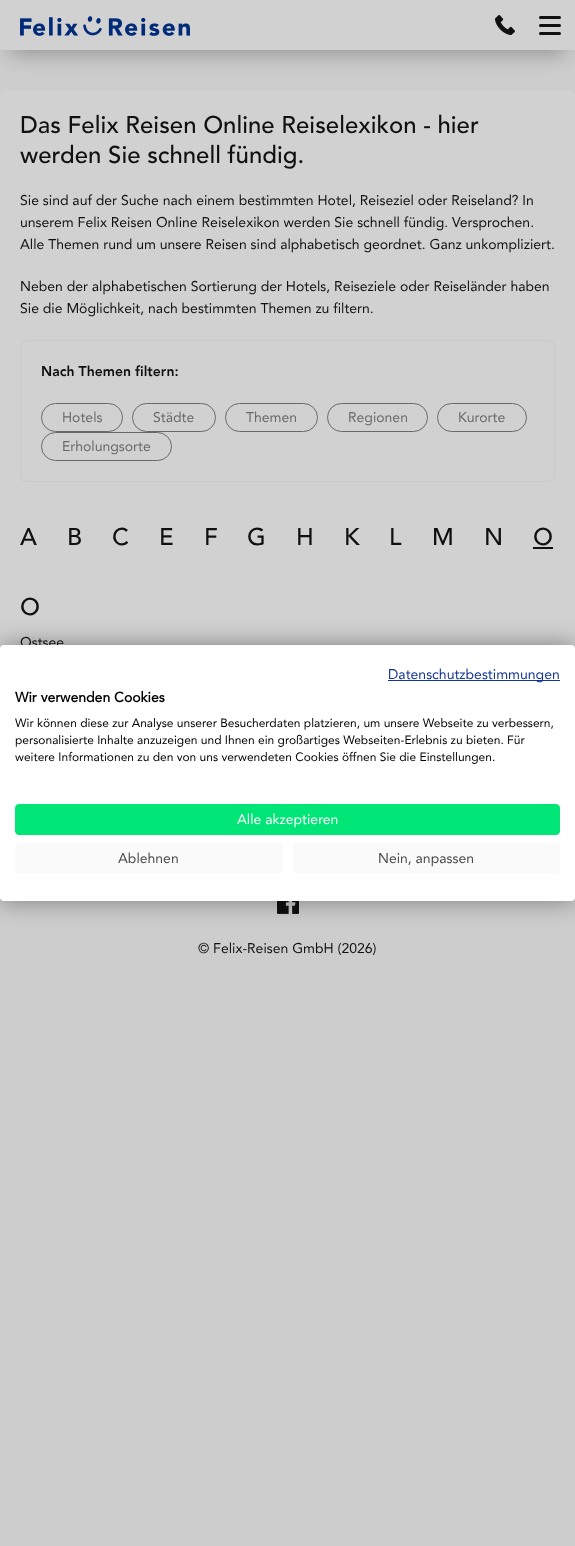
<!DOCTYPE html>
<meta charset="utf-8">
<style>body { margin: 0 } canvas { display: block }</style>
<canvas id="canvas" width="575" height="1546"></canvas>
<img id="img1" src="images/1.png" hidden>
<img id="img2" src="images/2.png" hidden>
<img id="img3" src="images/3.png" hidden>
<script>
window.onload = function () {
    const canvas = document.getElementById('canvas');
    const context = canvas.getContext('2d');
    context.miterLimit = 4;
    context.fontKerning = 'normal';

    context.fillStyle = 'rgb(205, 205, 205)';
    context.fillRect(0, 0, 575, 1546);
    context.fillStyle = 'rgba(0, 0, 0, 0.3)';
    context.filter = 'blur(10.5px)';
    context.beginPath();
    context.rect(10, 23, 555, 30);
    context.fill();
    context.filter = 'none';
    context.fillStyle = 'rgb(209, 209, 209)';
    context.fillRect(0, 0, 575, 50);
    context.drawImage(document.getElementById('img1'), 20, 16, 170, 20);
    context.drawImage(document.getElementById('img2'), 495, 15, 20, 20);
    context.fillStyle = 'rgb(16, 16, 16)';
    context.beginPath();
    context.roundRect(539, 16, 22, 3, 1.5);
    context.fill();
    context.beginPath();
    context.roundRect(539, 24, 22, 3, 1.5);
    context.fill();
    context.beginPath();
    context.roundRect(539, 32, 22, 3, 1.5);
    context.fill();
    context.fillStyle = 'rgb(209, 209, 209)';
    context.beginPath();
    context.roundRect(0, 90, 575, 630, 6);
    context.fill();
    context.beginPath();
    context.roundRect(20.5, 340.5, 534, 141, 5.5);
    context.strokeStyle = 'rgb(201, 201, 201)';
    context.stroke();
    context.beginPath();
    context.roundRect(41.5, 403.5, 81, 28, 14);
    context.strokeStyle = 'rgb(105, 105, 105)';
    context.stroke();
    context.beginPath();
    context.roundRect(132.5, 403.5, 83, 28, 14);
    context.stroke();
    context.beginPath();
    context.roundRect(225.5, 403.5, 92, 28, 14);
    context.stroke();
    context.beginPath();
    context.roundRect(327.5, 403.5, 100, 28, 14);
    context.stroke();
    context.beginPath();
    context.roundRect(437.5, 403.5, 89, 28, 14);
    context.stroke();
    context.beginPath();
    context.roundRect(41.5, 432.5, 130, 28, 14);
    context.stroke();
    context.fillStyle = 'rgb(16, 16, 16)';
    context.fillRect(533, 547, 20, 2);
    context.drawImage(document.getElementById('img3'), 277, 901, 22, 13);
    context.fillStyle = 'rgba(0, 0, 0, 0.4)';
    context.filter = 'blur(12px)';
    context.beginPath();
    context.roundRect(0, 645, 575, 256, 4);
    context.fill();
    context.filter = 'none';
    context.font = '500 24px "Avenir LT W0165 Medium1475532"';
    context.fillStyle = 'rgb(16, 16, 16)';
    context.fillText('Das Felix Reisen Online Reiselexikon - hier', 20, 133);
    context.fillText('werden Sie schnell fündig.', 20, 163);
    context.font = '14px "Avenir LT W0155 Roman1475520"';
    context.fillText('Sie sind auf der Suche nach einem bestimmten Hotel, Reiseziel oder Reiseland? In', 20, 205);
    context.fillText('unserem Felix Reisen Online Reiselexikon werden Sie schnell fündig. Versprochen.', 20, 227);
    context.fillText('Alle Themen rund um unsere Reisen sind alphabetisch geordnet. Ganz unkompliziert.', 20, 249);
    context.fillText('Neben der alphabetischen Sortierung der Hotels, Reiseziele oder Reiseländer haben', 20, 291);
    context.fillText('Sie die Möglichkeit, nach bestimmten Themen zu filtern.', 20, 313);
    context.font = '900 14px "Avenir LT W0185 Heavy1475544"';
    context.fillText('Nach Themen filtern:', 41, 376);
    context.font = '14px "Avenir LT W0155 Roman1475520"';
    context.fillStyle = 'rgb(105, 105, 105)';
    context.fillText('Hotels', 62, 422);
    context.fillText('Städte', 153, 422);
    context.fillText('Themen', 246, 422);
    context.fillText('Regionen', 348, 422);
    context.fillText('Kurorte', 458, 422);
    context.fillText('Erholungsorte', 62, 451);
    context.font = '500 24px "Avenir LT W0165 Medium1475532"';
    context.fillStyle = 'rgb(16, 16, 16)';
    context.fillText('A', 20, 545);
    context.fillText('B', 67, 545);
    context.fillText('C', 112, 545);
    context.fillText('E', 159, 545);
    context.fillText('F', 204, 545);
    context.fillText('G', 247, 545);
    context.fillText('H', 296, 545);
    context.fillText('K', 344, 545);
    context.fillText('L', 389, 545);
    context.fillText('M', 432, 545);
    context.fillText('N', 484, 545);
    context.fillText('O', 533, 545);
    context.fillText('O', 20, 615);
    context.font = '14px "Avenir LT W0155 Roman1475520"';
    context.fillText('Ostsee', 20, 647);
    context.fillText('© Felix-Reisen GmbH (2026)', 198, 953);
    context.fillStyle = 'rgb(255, 255, 255)';
    context.beginPath();
    context.roundRect(0, 645, 575, 256, 4);
    context.fill();
    context.fillStyle = 'rgb(19, 53, 149)';
    context.fillRect(388, 680, 172, 1);
    context.fillText('Datenschutzbestimmungen', 388, 679);
    context.font = 'bold 14px "Avenir LT W0155 Roman1475520"';
    context.fillStyle = 'rgb(0, 0, 0)';
    context.fillText('Wir verwenden Cookies', 15, 702);
    context.font = '12px "Avenir LT W0155 Roman1475520"';
    context.fillText('Wir können diese zur Analyse unserer Besucherdaten platzieren, um unsere Webseite zu verbessern,', 15, 727);
    context.fillText('personalisierte Inhalte anzuzeigen und Ihnen ein großartiges Webseiten-Erlebnis zu bieten. Für', 15, 744);
    context.fillText('weitere Informationen zu den von uns verwendeten Cookies öffnen Sie die Einstellungen.', 15, 761);
    context.fillStyle = 'rgb(0, 230, 118)';
    context.beginPath();
    context.roundRect(15.5, 804.5, 544, 30, 3.5);
    context.fill();
    context.strokeStyle = 'rgb(0, 230, 118)';
    context.stroke();
    context.font = '14px "Avenir LT W0155 Roman1475520"';
    context.fillStyle = 'rgb(255, 255, 255)';
    context.fillText('Alle akzeptieren', 237, 824);
    context.fillStyle = 'rgb(250, 250, 250)';
    context.beginPath();
    context.roundRect(15, 843, 268, 31, 4);
    context.fill();
    context.fillStyle = 'rgb(74, 74, 74)';
    context.fillText('Ablehnen', 118, 863);
    context.fillStyle = 'rgb(250, 250, 250)';
    context.beginPath();
    context.roundRect(293, 843, 267, 31, 4);
    context.fill();
    context.fillStyle = 'rgb(74, 74, 74)';
    context.fillText('Nein, anpassen', 378, 863);
};
</script>
